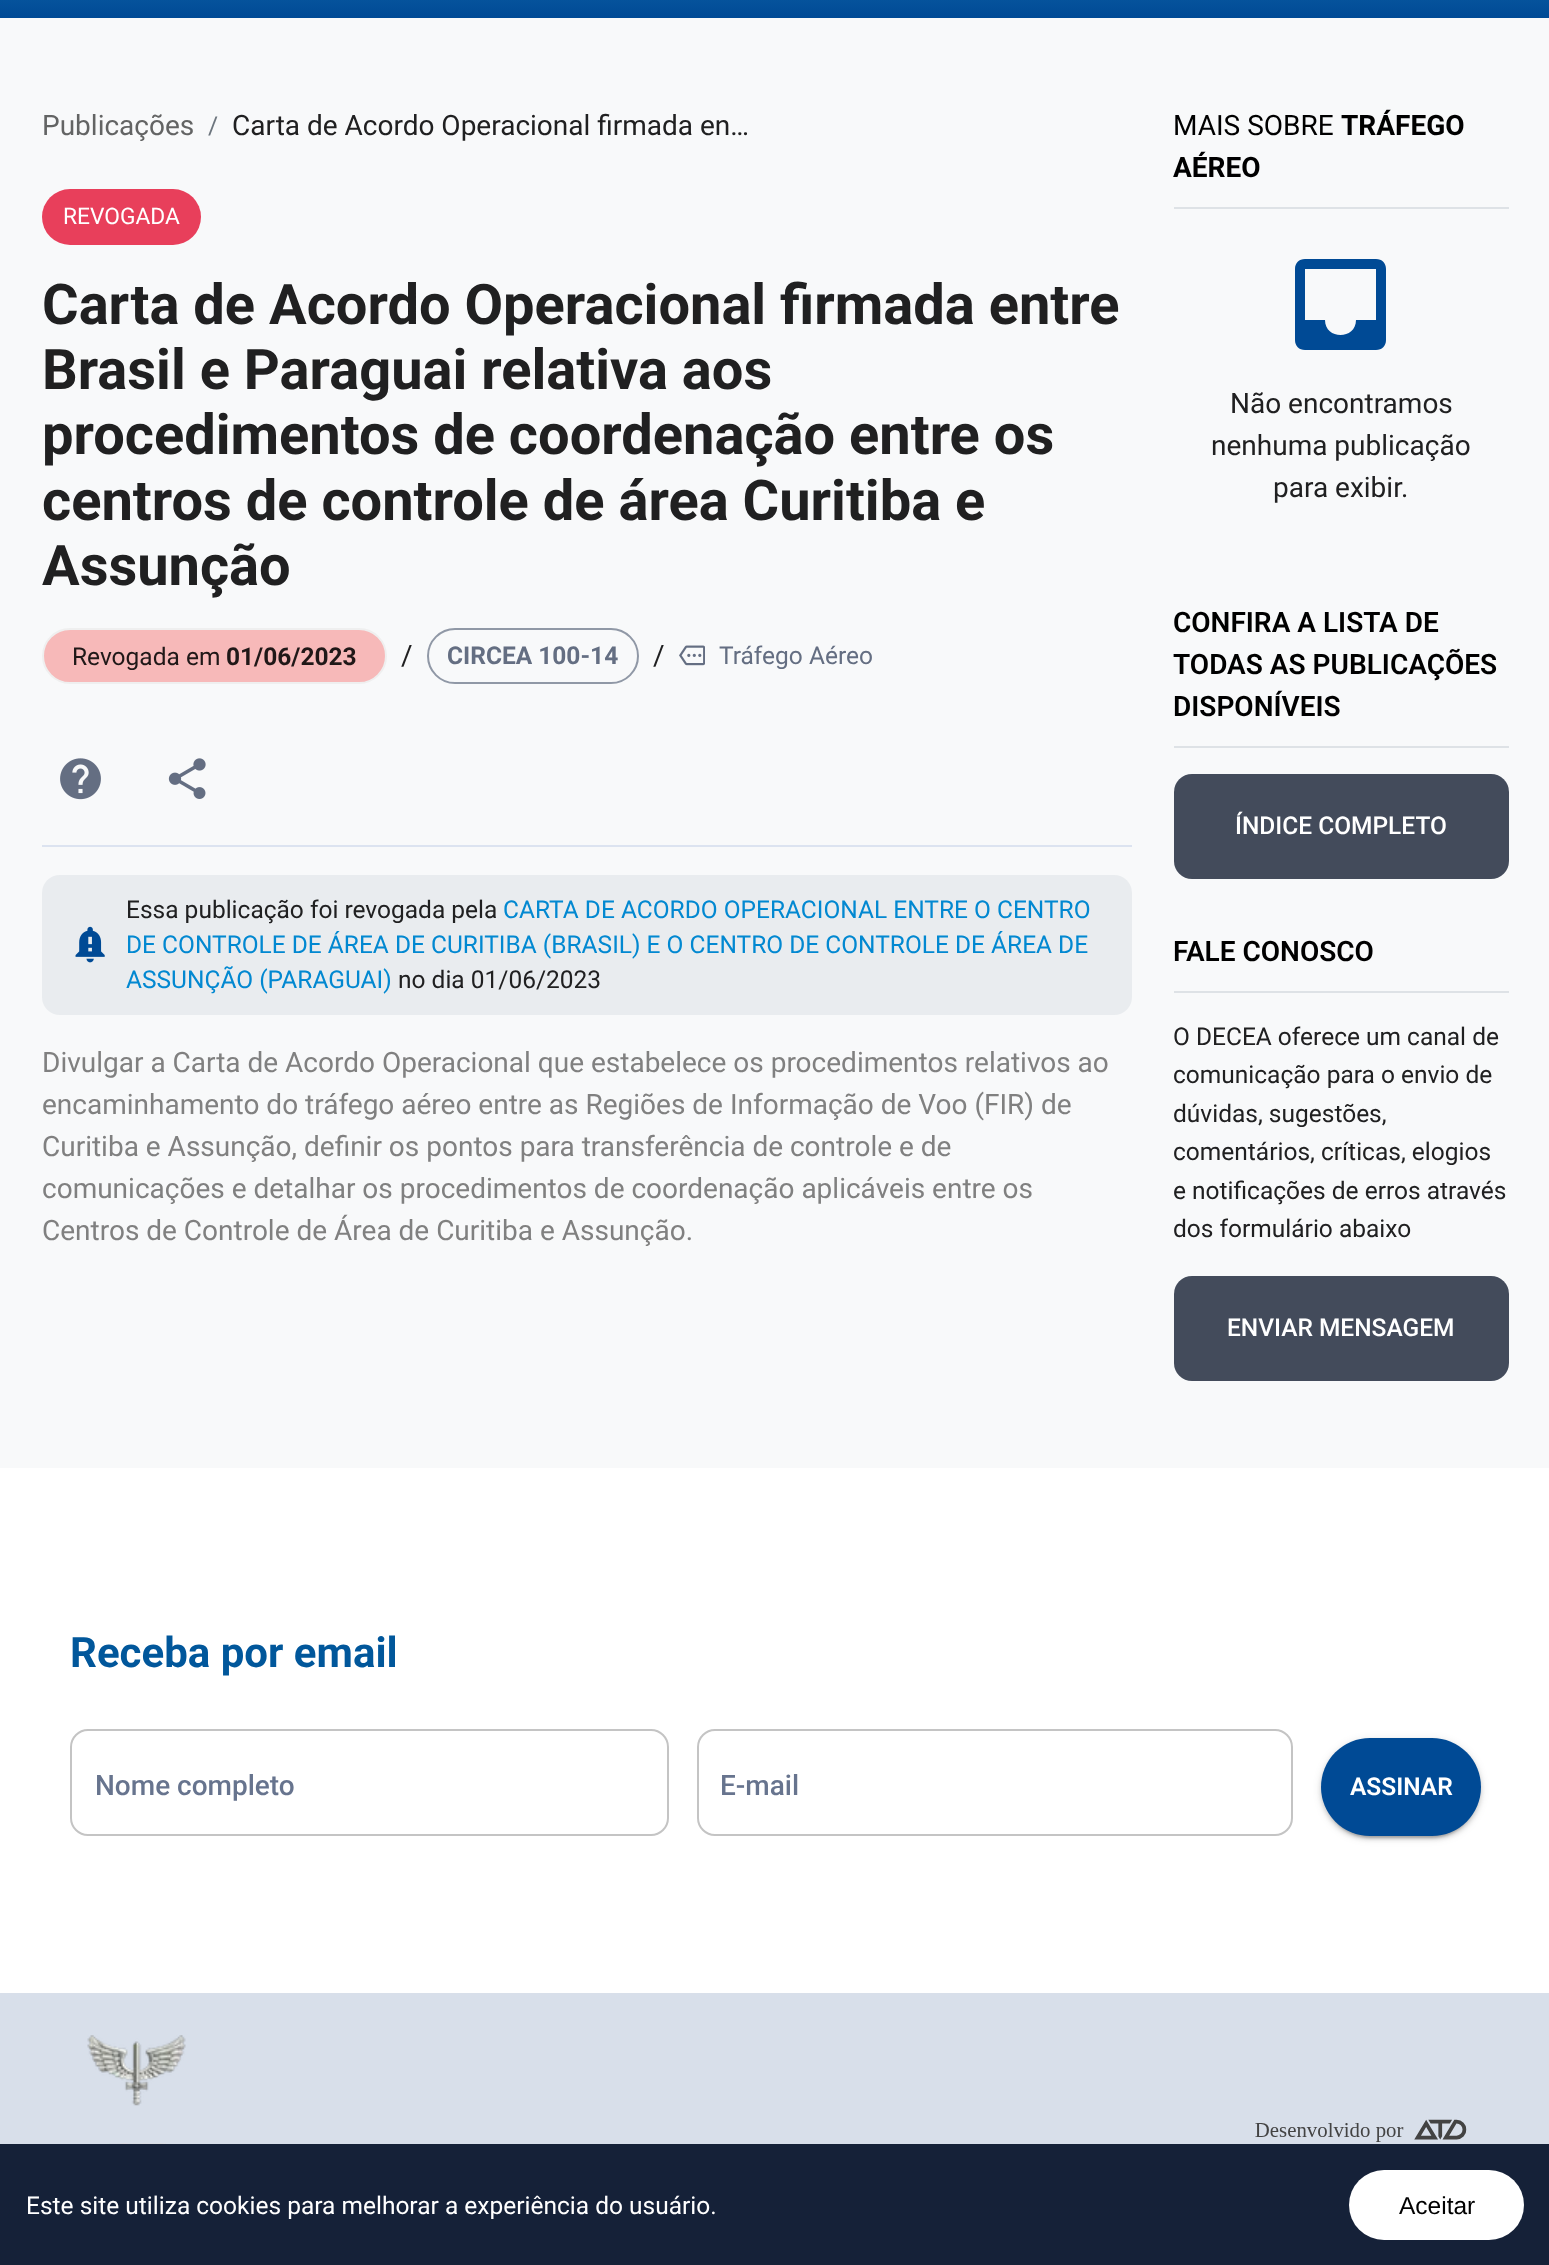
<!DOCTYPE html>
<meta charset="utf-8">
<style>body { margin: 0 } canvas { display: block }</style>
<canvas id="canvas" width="1549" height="2265"></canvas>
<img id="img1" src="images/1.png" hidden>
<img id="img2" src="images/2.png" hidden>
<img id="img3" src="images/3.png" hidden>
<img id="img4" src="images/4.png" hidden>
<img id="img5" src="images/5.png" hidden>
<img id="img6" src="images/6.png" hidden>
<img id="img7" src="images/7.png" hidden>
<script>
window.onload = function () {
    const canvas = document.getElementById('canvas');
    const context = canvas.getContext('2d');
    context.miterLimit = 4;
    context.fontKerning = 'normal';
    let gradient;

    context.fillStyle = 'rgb(248, 249, 250)';
    context.fillRect(0, 0, 1549, 2265);
    gradient = context.createLinearGradient(775, -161, 775, 18);
    gradient.addColorStop(0, 'rgb(50, 159, 217)');
    gradient.addColorStop(1, 'rgb(0, 74, 149)');
    context.fillStyle = gradient;
    context.fillRect(0, 0, 1549, 18);
    context.fillStyle = 'rgb(232, 63, 91)';
    context.beginPath();
    context.roundRect(42, 189, 159, 56, 28);
    context.fill();
    context.fillStyle = 'rgb(247, 185, 185)';
    context.beginPath();
    context.roundRect(43, 629, 343, 54, 27);
    context.fill();
    context.strokeStyle = 'rgb(239, 239, 239)';
    context.lineWidth = 2;
    context.stroke();
    context.beginPath();
    context.roundRect(428, 629, 210, 54, 27);
    context.strokeStyle = 'rgb(144, 152, 166)';
    context.stroke();
    context.drawImage(document.getElementById('img1'), 679, 645, 26, 21);
    context.fillStyle = 'rgb(220, 227, 240)';
    context.fillRect(42, 845, 1090, 2);
    context.drawImage(document.getElementById('img2'), 60, 758, 41, 42);
    context.drawImage(document.getElementById('img3'), 168, 758, 38, 41);
    context.fillStyle = 'rgb(233, 236, 239)';
    context.beginPath();
    context.roundRect(42, 875, 1090, 140, 18);
    context.fill();
    context.drawImage(document.getElementById('img4'), 75, 926, 30, 37);
    context.fillStyle = 'rgb(222, 226, 230)';
    context.fillRect(1174, 207, 335, 2);
    context.fillStyle = 'rgb(0, 74, 149)';
    context.beginPath();
    context.moveTo(1376, 259);
    context.lineTo(1305, 259);
    context.bezierCurveTo(1299, 259, 1295, 263, 1295, 269);
    context.lineTo(1295, 340);
    context.bezierCurveTo(1295, 346, 1299, 350, 1305, 350);
    context.lineTo(1376, 350);
    context.bezierCurveTo(1382, 350, 1386, 346, 1386, 340);
    context.lineTo(1386, 269);
    context.bezierCurveTo(1386, 263, 1382, 259, 1376, 259);
    context.moveTo(1376, 320);
    context.lineTo(1356, 320);
    context.bezierCurveTo(1356, 340, 1325, 340, 1325, 320);
    context.lineTo(1305, 320);
    context.lineTo(1305, 269);
    context.lineTo(1376, 269);
    context.closePath();
    context.fill();
    context.fillStyle = 'rgb(222, 226, 230)';
    context.fillRect(1174, 746, 335, 2);
    context.fillStyle = 'rgb(67, 75, 91)';
    context.beginPath();
    context.roundRect(1174, 774, 335, 105, 18);
    context.fill();
    context.fillStyle = 'rgb(222, 226, 230)';
    context.fillRect(1174, 991, 335, 2);
    context.fillStyle = 'rgb(67, 75, 91)';
    context.beginPath();
    context.roundRect(1174, 1276, 335, 105, 18);
    context.fill();
    context.fillStyle = 'rgb(255, 255, 255)';
    context.fillRect(0, 1468, 1549, 525);
    context.beginPath();
    context.roundRect(71, 1730, 597, 105, 17);
    context.strokeStyle = 'rgb(196, 196, 196)';
    context.stroke();
    context.beginPath();
    context.roundRect(698, 1730, 594, 105, 17);
    context.stroke();
    context.fillStyle = 'rgba(0, 0, 0, 0.12)';
    context.filter = 'blur(4.5px)';
    context.beginPath();
    context.roundRect(1321, 1740, 160, 98, 49);
    context.fill();
    context.filter = 'none';
    context.fillStyle = 'rgba(0, 0, 0, 0.14)';
    context.filter = 'blur(2px)';
    context.beginPath();
    context.roundRect(1321, 1741, 160, 98, 49);
    context.fill();
    context.filter = 'none';
    context.fillStyle = 'rgba(0, 0, 0, 0.2)';
    context.filter = 'blur(1px)';
    context.beginPath();
    context.roundRect(1325, 1747, 152, 91, 45.5);
    context.fill();
    context.filter = 'none';
    context.fillStyle = 'rgb(0, 74, 149)';
    context.beginPath();
    context.roundRect(1321, 1738, 160, 98, 49);
    context.fill();
    context.fillStyle = 'rgb(216, 223, 234)';
    context.fillRect(0, 1993, 1549, 151);
    context.drawImage(document.getElementById('img5'), 87, 2035, 99, 71);
    context.drawImage(document.getElementById('img6'), 106, 2143, 61, 1);
    context.drawImage(document.getElementById('img7'), 1255, 2119, 212, 23);
    context.fillStyle = 'rgb(21, 33, 56)';
    context.fillRect(0, 2144, 1549, 121);
    context.fillStyle = 'rgb(255, 255, 255)';
    context.beginPath();
    context.roundRect(1349, 2170, 175, 70, 35);
    context.fill();
    context.font = '28px Roboto';
    context.fillStyle = 'rgb(99, 100, 100)';
    context.fillText('Publicações', 42, 135);
    context.font = '24.5px Roboto';
    context.fillStyle = 'rgb(108, 117, 125)';
    context.fillText('/', 208, 134);
    context.font = '28px Roboto';
    context.fillStyle = 'rgb(32, 32, 33)';
    context.fillText('Carta de Acordo Operacional firmada en…', 232, 135);
    context.font = '22.75px Roboto';
    context.fillStyle = 'rgb(255, 255, 255)';
    context.fillText('REVOGADA', 63, 224);
    context.font = 'bold 56px Roboto';
    context.fillStyle = 'rgb(32, 32, 33)';
    context.fillText('Carta de Acordo Operacional firmada entre', 42, 324);
    context.fillText('Brasil e Paraguai relativa aos', 42, 389);
    context.fillText('procedimentos de coordenação entre os', 42, 454);
    context.fillText('centros de controle de área Curitiba e', 42, 520);
    context.fillText('Assunção', 42, 585);
    context.font = '24.5px Roboto';
    context.fillStyle = 'rgb(32, 24, 24)';
    context.fillText('Revogada em', 72, 665);
    context.font = 'bold 24.5px Roboto';
    context.fillText('01/06/2023', 226, 665);
    context.font = '28px Roboto';
    context.fillStyle = 'rgb(32, 32, 33)';
    context.fillText('/', 401, 665);
    context.font = 'bold 24.5px Roboto';
    context.fillStyle = 'rgb(100, 110, 130)';
    context.fillText('CIRCEA 100-14', 447, 664);
    context.font = '28px Roboto';
    context.fillStyle = 'rgb(32, 32, 33)';
    context.fillText('/', 653, 665);
    context.font = '24.5px Roboto';
    context.fillStyle = 'rgb(100, 110, 130)';
    context.fillText('Tráfego Aéreo', 719, 664);
    context.fillStyle = 'rgb(32, 32, 33)';
    context.fillText('Essa publicação foi revogada pela', 126, 918);
    context.fillStyle = 'rgb(2, 136, 209)';
    context.fillText('CARTA DE ACORDO OPERACIONAL ENTRE O CENTRO', 503, 918);
    context.fillText('DE CONTROLE DE ÁREA DE CURITIBA (BRASIL) E O CENTRO DE CONTROLE DE ÁREA DE', 126, 953);
    context.fillText('ASSUNÇÃO (PARAGUAI)', 126, 988);
    context.fillStyle = 'rgb(32, 32, 33)';
    context.fillText('no dia 01/06/2023', 398, 988);
    context.font = '28px Roboto';
    context.fillStyle = 'rgb(128, 128, 128)';
    context.fillText('Divulgar a Carta de Acordo Operacional que estabelece os procedimentos relativos ao', 42, 1072);
    context.fillText('encaminhamento do tráfego aéreo entre as Regiões de Informação de Voo (FIR) de', 42, 1114);
    context.fillText('Curitiba e Assunção, definir os pontos para transferência de controle e de', 42, 1156);
    context.fillText('comunicações e detalhar os procedimentos de coordenação aplicáveis entre os', 42, 1198);
    context.fillText('Centros de Controle de Área de Curitiba e Assunção.', 42, 1240);
    context.fillStyle = 'rgb(0, 0, 0)';
    context.fillText('MAIS SOBRE', 1173, 135);
    context.font = 'bold 28px Roboto';
    context.fillText('TRÁFEGO', 1341, 135);
    context.fillText('AÉREO', 1173, 177);
    context.font = '28px Roboto';
    context.fillStyle = 'rgb(32, 32, 33)';
    context.fillText('Não encontramos', 1230, 413);
    context.fillText('nenhuma publicação', 1211, 455);
    context.fillText('para exibir.', 1273, 497);
    context.font = '600 28px Roboto';
    context.fillStyle = 'rgb(0, 0, 0)';
    context.fillText('CONFIRA A LISTA DE', 1173, 632);
    context.fillText('TODAS AS PUBLICAÇÕES', 1173, 674);
    context.fillText('DISPONÍVEIS', 1173, 716);
    context.font = '500 24.5px Roboto';
    context.fillStyle = 'rgb(255, 255, 255)';
    context.fillText('ÍNDICE COMPLETO', 1235, 834);
    context.font = '600 28px Roboto';
    context.fillStyle = 'rgb(0, 0, 0)';
    context.fillText('FALE CONOSCO', 1173, 961);
    context.font = '24.5px Roboto';
    context.fillStyle = 'rgb(32, 32, 33)';
    context.fillText('O DECEA oferece um canal de', 1173, 1045);
    context.fillText('comunicação para o envio de', 1173, 1083);
    context.fillText('dúvidas, sugestões,', 1173, 1122);
    context.fillText('comentários, críticas, elogios', 1173, 1160);
    context.fillText('e notificações de erros através', 1173, 1199);
    context.fillText('dos formulário abaixo', 1173, 1237);
    context.font = '500 24.5px Roboto';
    context.fillStyle = 'rgb(255, 255, 255)';
    context.fillText('ENVIAR MENSAGEM', 1227, 1336);
    context.font = 'bold 42px Roboto';
    context.fillStyle = 'rgb(1, 87, 155)';
    context.fillText('Receba por email', 70, 1667);
    context.font = '500 28px Roboto';
    context.fillStyle = 'rgb(103, 116, 142)';
    context.fillText('Nome completo', 95, 1795);
    context.fillText('E-mail', 720, 1795);
    context.font = '600 24.5px Roboto';
    context.fillStyle = 'rgb(255, 255, 255)';
    context.fillText('ASSINAR', 1350, 1795);
    context.font = '24.5px Roboto';
    context.fillText('Este site utiliza cookies para melhorar a experiência do usuário.', 26, 2214);
    context.font = '24.5px Liberation Sans';
    context.fillStyle = 'rgb(0, 0, 0)';
    context.fillText('Aceitar', 1399, 2214);
};
</script>
